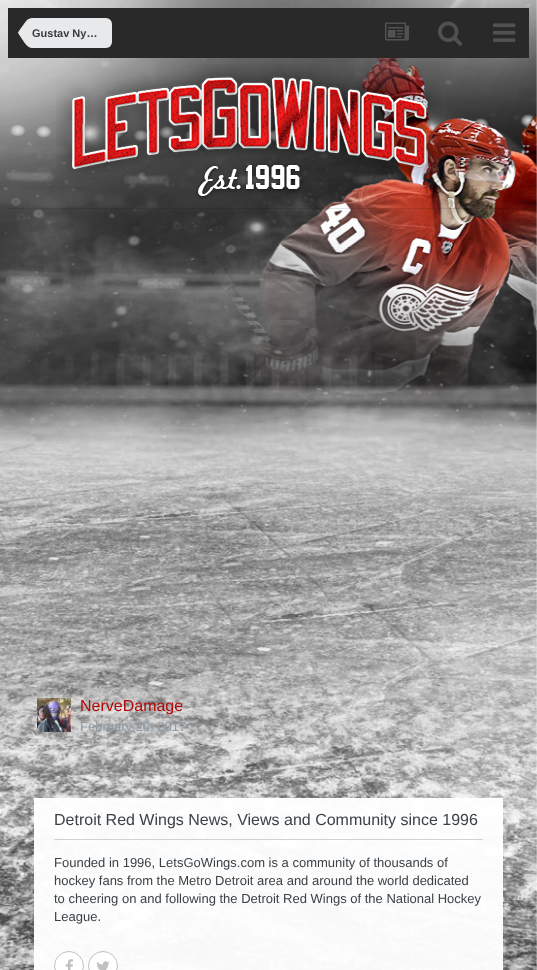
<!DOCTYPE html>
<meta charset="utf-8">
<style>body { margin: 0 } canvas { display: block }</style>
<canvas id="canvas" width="537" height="970"></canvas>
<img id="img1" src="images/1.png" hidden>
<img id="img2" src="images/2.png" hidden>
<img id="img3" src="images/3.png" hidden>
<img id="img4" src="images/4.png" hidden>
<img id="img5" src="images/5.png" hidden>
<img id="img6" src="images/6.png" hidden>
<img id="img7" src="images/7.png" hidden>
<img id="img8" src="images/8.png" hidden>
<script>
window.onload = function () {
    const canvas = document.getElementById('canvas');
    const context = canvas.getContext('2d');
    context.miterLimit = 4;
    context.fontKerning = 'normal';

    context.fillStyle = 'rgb(255, 255, 255)';
    context.fillRect(0, 0, 537, 970);
    context.drawImage(document.getElementById('img1'), 0, 0, 537, 970);
    context.fillStyle = 'rgba(0, 0, 0, 0.1)';
    context.fillRect(8, 208, 521, 1);
    context.fillStyle = 'rgb(41, 41, 41)';
    context.fillRect(8, 8, 521, 50);
    context.fillStyle = 'rgb(232, 233, 235)';
    context.beginPath();
    context.roundRect(32, 18, 80, 30, [0, 6, 6, 0]);
    context.fill();
    context.beginPath();
    context.moveTo(32, 33);
    context.lineTo(32, 48);
    context.bezierCurveTo(30, 48, 27.5, 46.5, 25, 43.5);
    context.lineTo(18, 33);
    context.closePath();
    context.moveTo(32, 33);
    context.lineTo(18, 33);
    context.bezierCurveTo(18, 32, 26.5, 20.5, 27, 20);
    context.bezierCurveTo(28.5, 19, 30, 18, 32, 18);
    context.closePath();
    context.fill();
    context.drawImage(document.getElementById('img2'), 385, 22, 24, 19);
    context.drawImage(document.getElementById('img3'), 438, 21, 24, 25);
    context.drawImage(document.getElementById('img4'), 493, 23, 23, 19);
    context.drawImage(document.getElementById('img5'), 56, 64, 386, 135);
    context.drawImage(document.getElementById('img6'), 37, 698, 34, 34);
    context.fillStyle = 'rgba(255, 255, 255, 0.97)';
    context.fillRect(34, 798, 469, 172);
    context.fillStyle = 'rgba(207, 207, 207, 0.97)';
    context.fillRect(54, 839, 429, 1);
    context.fillStyle = 'rgba(255, 255, 255, 0.97)';
    context.beginPath();
    context.arc(69, 966, 14.5, 0, 2 * Math.PI);
    context.fill();
    context.strokeStyle = 'rgb(193, 193, 193)';
    context.stroke();
    context.drawImage(document.getElementById('img7'), 65, 959, 8, 11);
    context.beginPath();
    context.arc(103, 966, 14.5, 0, 2 * Math.PI);
    context.fill();
    context.stroke();
    context.drawImage(document.getElementById('img8'), 97, 961, 13, 9);
    context.font = 'bold 11px Liberation Sans';
    context.fillStyle = 'rgb(53, 60, 65)';
    context.fillText('Gustav Ny…', 32, 37);
    context.font = '16px Liberation Sans';
    context.fillStyle = 'rgb(180, 6, 6)';
    context.fillText('NerveDamage', 80, 711);
    context.font = '13px Liberation Sans';
    context.fillStyle = 'rgb(142, 155, 167)';
    context.fillText('February 20, 2017', 80, 731);
    context.font = '16px Liberation Sans';
    context.fillStyle = 'rgb(59, 66, 71)';
    context.fillText('Detroit Red Wings News, Views and Community since 1996', 54, 825);
    context.font = '13px Liberation Sans';
    context.fillText('Founded in 1996, LetsGoWings.com is a community of thousands of', 54, 867);
    context.fillText('hockey fans from the Metro Detroit area and around the world dedicated', 54, 885);
    context.fillText('to cheering on and following the Detroit Red Wings of the National Hockey', 54, 903);
    context.fillText('League.', 54, 921);
};
</script>
